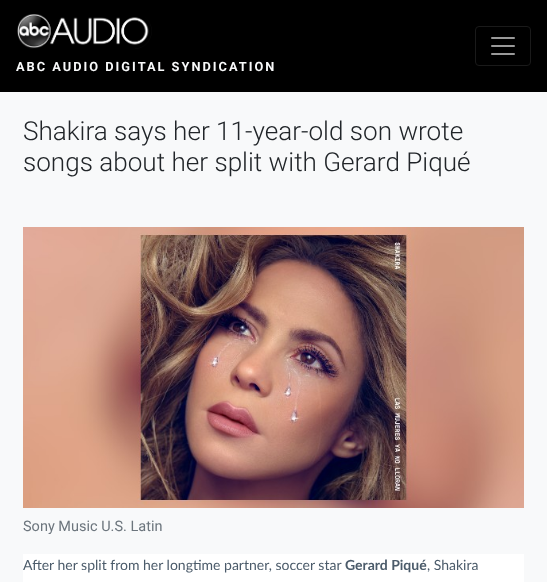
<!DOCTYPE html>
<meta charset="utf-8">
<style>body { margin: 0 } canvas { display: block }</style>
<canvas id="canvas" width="547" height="582"></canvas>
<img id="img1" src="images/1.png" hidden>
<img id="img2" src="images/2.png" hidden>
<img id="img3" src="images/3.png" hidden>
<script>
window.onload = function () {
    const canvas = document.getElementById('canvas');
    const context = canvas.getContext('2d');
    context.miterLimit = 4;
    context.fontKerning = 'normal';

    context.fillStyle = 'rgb(248, 249, 250)';
    context.fillRect(0, 0, 547, 582);
    context.fillStyle = 'rgb(0, 0, 0)';
    context.fillRect(0, 0, 547, 92);
    context.drawImage(document.getElementById('img1'), 17, 14, 135, 35);
    context.beginPath();
    context.roundRect(475.5, 26.5, 55, 39, 3.5);
    context.strokeStyle = 'rgb(26, 26, 26)';
    context.stroke();
    context.drawImage(document.getElementById('img2'), 491, 37, 24, 18);
    context.drawImage(document.getElementById('img3'), 23, 227, 501, 281);
    context.fillStyle = 'rgb(255, 255, 255)';
    context.fillRect(23, 554, 501, 28);
    context.letterSpacing = '2px';
    context.font = 'bold 12.8px Roboto';
    context.fillStyle = 'rgb(248, 249, 250)';
    context.fillText('ABC AUDIO DIGITAL SYNDICATION', 16, 71);
    context.letterSpacing = '0px';
    context.font = '300 26.1px Roboto';
    context.fillStyle = 'rgb(33, 37, 41)';
    context.fillText('Shakira says her 11-year-old son wrote', 23, 140);
    context.fillText('songs about her split with Gerard Piqué', 23, 171);
    context.font = '14.5px Roboto';
    context.fillStyle = 'rgb(108, 117, 125)';
    context.fillText('Sony Music U.S. Latin', 23, 531);
    context.font = '14px Lato';
    context.fillStyle = 'rgb(75, 91, 106)';
    context.fillText('After her split from her longtime partner, soccer star', 23, 570);
    context.font = 'bold 14px Lato';
    context.fillText('Gerard Piqué', 345, 570);
    context.font = '14px Lato';
    context.fillText(', Shakira', 427, 570);
};
</script>
